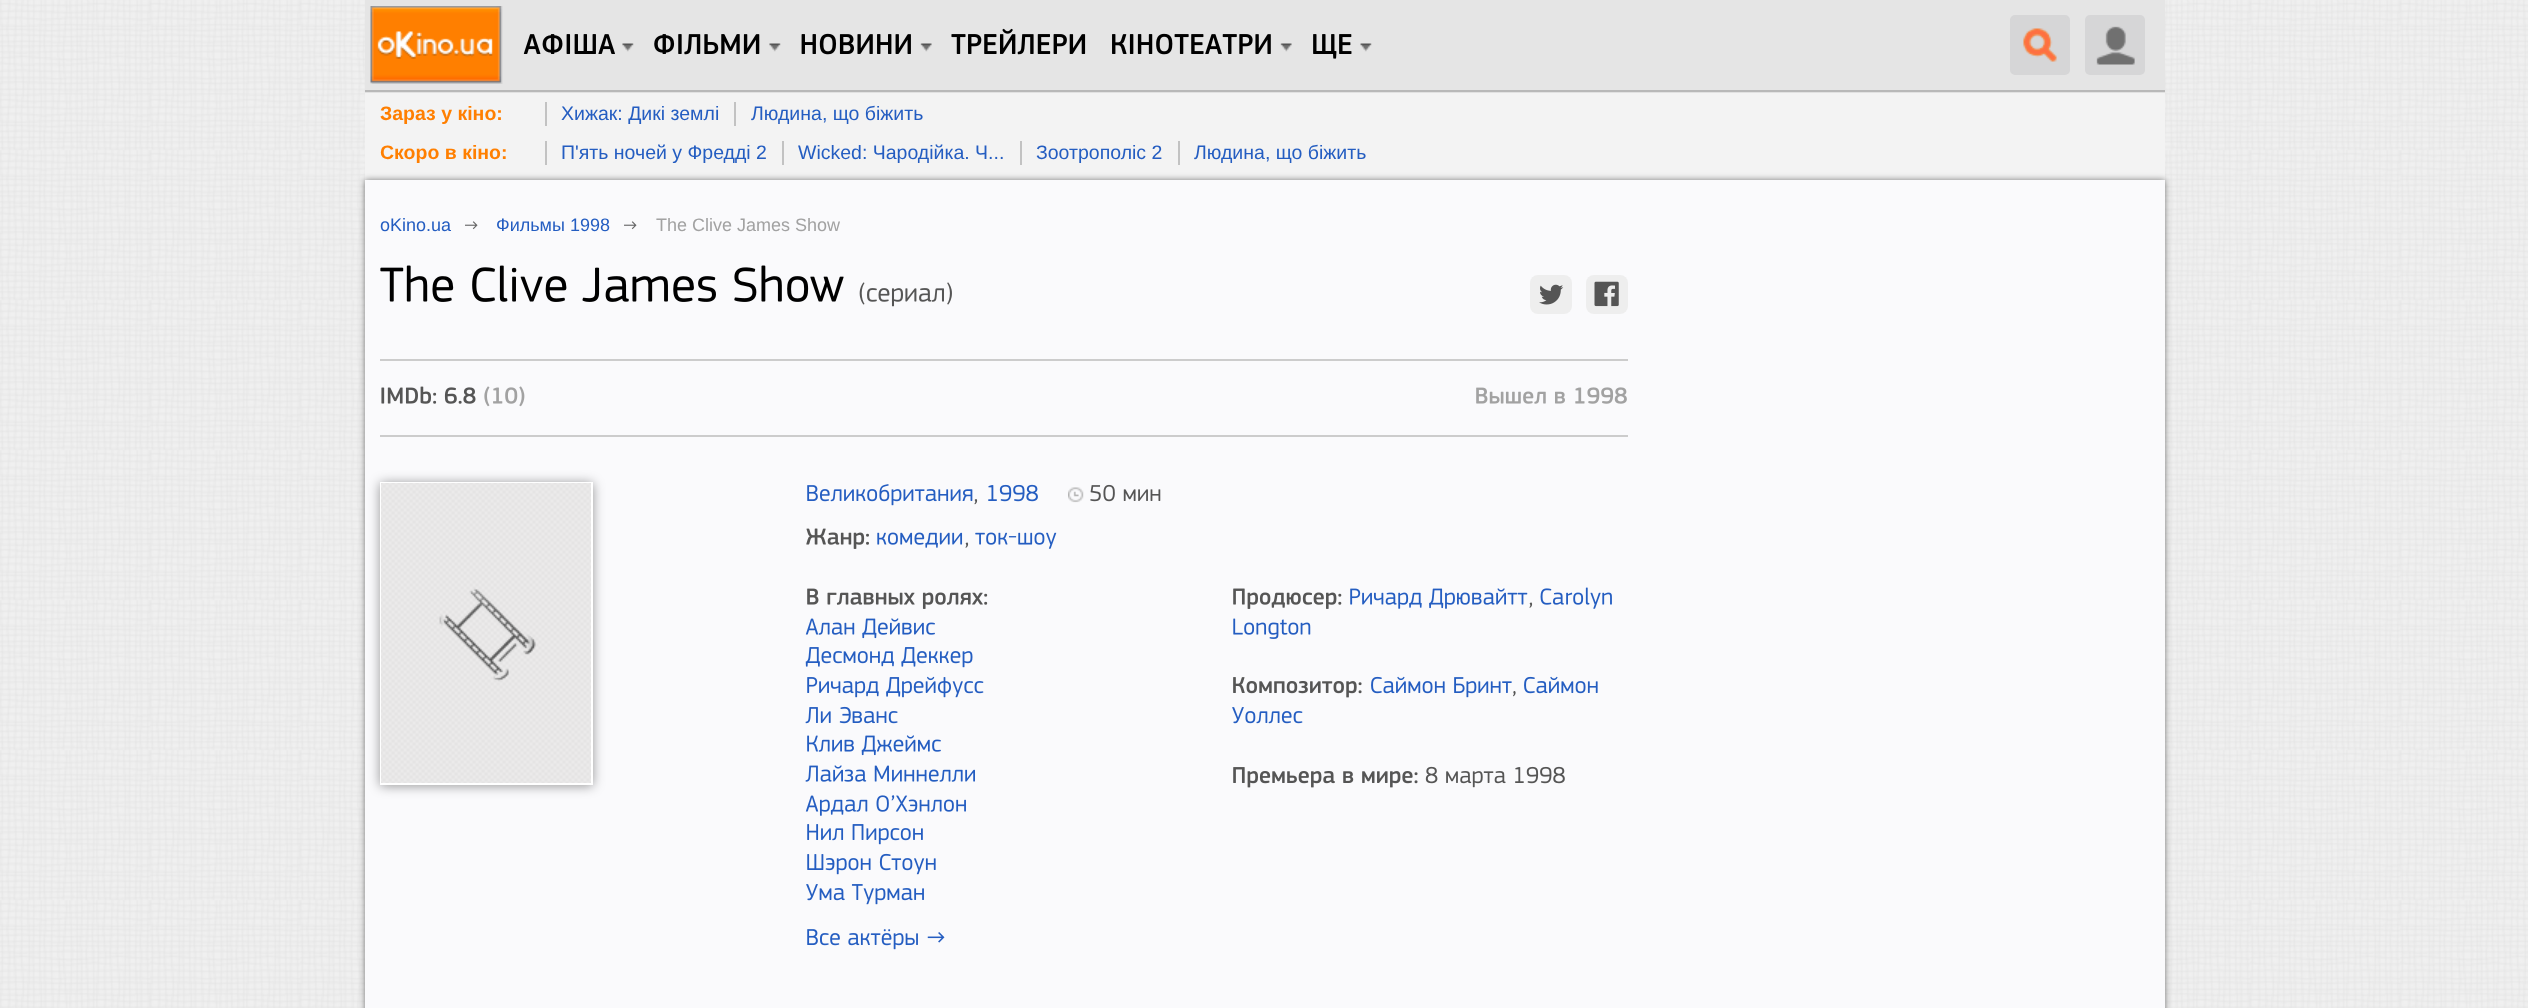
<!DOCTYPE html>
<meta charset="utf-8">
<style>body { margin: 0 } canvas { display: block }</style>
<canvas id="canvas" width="2528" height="1008"></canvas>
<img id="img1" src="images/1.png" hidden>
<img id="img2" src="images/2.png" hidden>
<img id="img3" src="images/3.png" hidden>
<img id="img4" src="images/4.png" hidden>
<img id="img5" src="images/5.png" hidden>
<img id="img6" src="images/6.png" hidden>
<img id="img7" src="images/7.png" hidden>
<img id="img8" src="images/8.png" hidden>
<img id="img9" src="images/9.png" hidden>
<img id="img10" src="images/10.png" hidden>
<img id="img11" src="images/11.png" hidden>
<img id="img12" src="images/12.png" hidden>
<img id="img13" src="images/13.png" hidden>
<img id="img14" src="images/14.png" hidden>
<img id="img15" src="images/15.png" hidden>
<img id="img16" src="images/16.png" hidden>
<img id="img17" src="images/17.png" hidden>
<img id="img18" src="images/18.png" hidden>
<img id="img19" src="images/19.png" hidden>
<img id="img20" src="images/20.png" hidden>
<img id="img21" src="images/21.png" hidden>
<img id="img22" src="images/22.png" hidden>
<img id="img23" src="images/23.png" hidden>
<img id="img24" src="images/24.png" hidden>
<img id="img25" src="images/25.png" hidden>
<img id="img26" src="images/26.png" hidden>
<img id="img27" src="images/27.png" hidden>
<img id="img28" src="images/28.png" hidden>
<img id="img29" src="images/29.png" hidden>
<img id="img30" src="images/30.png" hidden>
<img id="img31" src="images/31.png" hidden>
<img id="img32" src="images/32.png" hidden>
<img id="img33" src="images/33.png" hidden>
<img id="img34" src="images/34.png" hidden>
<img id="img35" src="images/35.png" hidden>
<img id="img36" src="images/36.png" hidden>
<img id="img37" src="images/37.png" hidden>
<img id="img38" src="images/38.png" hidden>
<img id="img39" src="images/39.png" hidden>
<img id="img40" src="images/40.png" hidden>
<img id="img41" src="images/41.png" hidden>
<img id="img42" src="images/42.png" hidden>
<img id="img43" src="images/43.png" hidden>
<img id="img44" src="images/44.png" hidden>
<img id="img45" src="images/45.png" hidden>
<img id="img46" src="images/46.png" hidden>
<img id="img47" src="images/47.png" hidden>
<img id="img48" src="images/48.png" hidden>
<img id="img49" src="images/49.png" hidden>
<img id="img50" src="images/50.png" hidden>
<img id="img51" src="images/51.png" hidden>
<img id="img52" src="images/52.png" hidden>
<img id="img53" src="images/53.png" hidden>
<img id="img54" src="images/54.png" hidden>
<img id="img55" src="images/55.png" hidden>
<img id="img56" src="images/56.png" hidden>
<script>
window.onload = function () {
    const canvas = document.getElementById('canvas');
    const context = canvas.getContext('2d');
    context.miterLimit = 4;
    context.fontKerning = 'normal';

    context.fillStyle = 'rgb(255, 255, 255)';
    context.fillRect(0, 0, 2528, 1008);
    context.drawImage(document.getElementById('img1'), 0, 0, 2528, 1008);
    context.fillStyle = 'rgb(243, 243, 243)';
    context.fillRect(365, 90, 1800, 90);
    context.fillStyle = 'rgba(0, 0, 0, 0.07)';
    context.beginPath();
    context.moveTo(365, 90);
    context.lineTo(365, 93);
    context.lineTo(2165, 93);
    context.lineTo(2165, 3);
    context.lineTo(2164, 3);
    context.lineTo(2164, 90);
    context.closePath();
    context.fill();
    context.fillStyle = 'rgba(0, 0, 0, 0.18)';
    context.beginPath();
    context.moveTo(365, 90);
    context.lineTo(365, 92);
    context.lineTo(2165, 92);
    context.lineTo(2165, 2);
    context.lineTo(2164, 2);
    context.lineTo(2164, 90);
    context.closePath();
    context.fill();
    context.fillStyle = 'rgb(229, 229, 229)';
    context.fillRect(365, 0, 1800, 90);
    context.drawImage(document.getElementById('img2'), 370, 6, 133, 78);
    context.drawImage(document.getElementById('img3'), 622, 43, 12, 9);
    context.drawImage(document.getElementById('img4'), 523, 34, 92, 20);
    context.drawImage(document.getElementById('img3'), 769, 43, 12, 9);
    context.drawImage(document.getElementById('img5'), 654, 34, 106, 21);
    context.drawImage(document.getElementById('img6'), 920, 43, 12, 9);
    context.drawImage(document.getElementById('img7'), 801, 33, 110, 22);
    context.drawImage(document.getElementById('img8'), 951, 28, 135, 27);
    context.drawImage(document.getElementById('img9'), 1280, 43, 12, 9);
    context.drawImage(document.getElementById('img10'), 1112, 33, 159, 22);
    context.drawImage(document.getElementById('img11'), 1360, 43, 12, 9);
    context.drawImage(document.getElementById('img12'), 1313, 34, 39, 25);
    context.fillStyle = 'rgb(214, 214, 215)';
    context.beginPath();
    context.roundRect(2011, 16, 58, 58, 4);
    context.fill();
    context.strokeStyle = 'rgb(214, 214, 215)';
    context.lineWidth = 2;
    context.stroke();
    context.drawImage(document.getElementById('img13'), 2023, 28, 34, 34);
    context.beginPath();
    context.roundRect(2085, 15, 60, 60, 5);
    context.fill();
    context.drawImage(document.getElementById('img14'), 2096, 26, 39, 39);
    context.fillStyle = 'rgb(194, 194, 194)';
    context.fillRect(545, 102, 2, 24);
    context.fillRect(734, 102, 2, 24);
    context.fillRect(545, 141, 2, 24);
    context.fillRect(782, 141, 2, 24);
    context.fillRect(1020, 141, 2, 24);
    context.fillRect(1178, 141, 2, 24);
    context.fillStyle = 'rgba(0, 0, 0, 0.5)';
    context.filter = 'blur(3px)';
    context.beginPath();
    context.rect(365, 180, 1800, 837);
    context.fill();
    context.filter = 'none';
    context.fillStyle = 'rgb(250, 250, 252)';
    context.fillRect(365, 180, 1800, 828);
    context.drawImage(document.getElementById('img15'), 465, 221, 13, 9);
    context.drawImage(document.getElementById('img15'), 624, 221, 13, 9);
    context.drawImage(document.getElementById('img16'), 380, 265, 464, 37);
    context.drawImage(document.getElementById('img17'), 859, 282, 93, 25);
    context.fillStyle = 'rgb(238, 238, 238)';
    context.beginPath();
    context.roundRect(1530, 275, 42, 39, 8);
    context.fill();
    context.drawImage(document.getElementById('img18'), 1539, 284, 25, 21);
    context.beginPath();
    context.roundRect(1586, 275, 42, 39, 8);
    context.fill();
    context.drawImage(document.getElementById('img19'), 1594, 281, 25, 26);
    context.fillStyle = 'rgb(204, 204, 204)';
    context.fillRect(380, 359, 1248, 2);
    context.fillRect(380, 435, 1248, 2);
    context.drawImage(document.getElementById('img20'), 381, 386, 95, 18);
    context.drawImage(document.getElementById('img21'), 484, 386, 41, 21);
    context.drawImage(document.getElementById('img22'), 1476, 387, 151, 17);
    context.fillStyle = 'rgba(0, 0, 0, 0.4)';
    context.filter = 'blur(6px)';
    context.beginPath();
    context.rect(380, 483, 213, 303);
    context.fill();
    context.filter = 'none';
    context.strokeStyle = 'rgb(255, 255, 255)';
    context.strokeRect(381, 483, 211, 301);
    context.drawImage(document.getElementById('img23'), 381, 483, 210, 300);
    context.drawImage(document.getElementById('img24'), 807, 484, 166, 22);
    context.drawImage(document.getElementById('img25'), 974, 499, 4, 6);
    context.drawImage(document.getElementById('img26'), 988, 484, 50, 18);
    context.drawImage(document.getElementById('img27'), 1068, 487, 16, 16);
    context.drawImage(document.getElementById('img28'), 1090, 484, 25, 18);
    context.drawImage(document.getElementById('img29'), 1123, 489, 38, 12);
    context.drawImage(document.getElementById('img30'), 806, 528, 63, 21);
    context.drawImage(document.getElementById('img31'), 877, 532, 86, 16);
    context.drawImage(document.getElementById('img32'), 965, 542, 4, 6);
    context.drawImage(document.getElementById('img33'), 975, 532, 82, 17);
    context.drawImage(document.getElementById('img34'), 807, 588, 181, 21);
    context.drawImage(document.getElementById('img35'), 805, 618, 130, 21);
    context.drawImage(document.getElementById('img36'), 805, 647, 168, 21);
    context.drawImage(document.getElementById('img37'), 807, 676, 177, 22);
    context.drawImage(document.getElementById('img38'), 805, 706, 93, 18);
    context.drawImage(document.getElementById('img39'), 807, 735, 134, 21);
    context.drawImage(document.getElementById('img40'), 805, 765, 170, 17);
    context.drawImage(document.getElementById('img41'), 805, 795, 161, 21);
    context.drawImage(document.getElementById('img42'), 807, 824, 116, 21);
    context.drawImage(document.getElementById('img43'), 807, 853, 129, 22);
    context.drawImage(document.getElementById('img44'), 806, 884, 118, 21);
    context.drawImage(document.getElementById('img45'), 807, 929, 138, 21);
    context.drawImage(document.getElementById('img46'), 1233, 588, 109, 21);
    context.drawImage(document.getElementById('img47'), 1350, 588, 178, 21);
    context.drawImage(document.getElementById('img32'), 1529, 602, 4, 6);
    context.drawImage(document.getElementById('img48'), 1540, 587, 72, 22);
    context.drawImage(document.getElementById('img49'), 1233, 618, 78, 21);
    context.drawImage(document.getElementById('img50'), 1233, 677, 129, 21);
    context.drawImage(document.getElementById('img51'), 1371, 676, 141, 22);
    context.drawImage(document.getElementById('img52'), 1513, 691, 3, 6);
    context.drawImage(document.getElementById('img53'), 1524, 676, 74, 18);
    context.drawImage(document.getElementById('img54'), 1232, 707, 71, 17);
    context.drawImage(document.getElementById('img55'), 1233, 767, 185, 21);
    context.drawImage(document.getElementById('img56'), 1425, 766, 140, 22);
    context.font = 'bold 19.5px Liberation Sans';
    context.fillStyle = 'rgb(255, 127, 0)';
    context.fillText('Зараз у кіно:', 380, 120);
    context.font = '19.5px Liberation Sans';
    context.fillStyle = 'rgb(36, 93, 193)';
    context.fillText('Хижак: Дикі землі', 561, 120);
    context.fillText('Людина, що біжить', 751, 120);
    context.font = 'bold 19.5px Liberation Sans';
    context.fillStyle = 'rgb(255, 127, 0)';
    context.fillText('Скоро в кіно:', 380, 159);
    context.font = '19.5px Liberation Sans';
    context.fillStyle = 'rgb(36, 93, 193)';
    context.fillText('П\'ять ночей у Фредді 2', 561, 159);
    context.fillText('Wicked: Чародійка. Ч...', 798, 159);
    context.fillText('Зоотрополіс 2', 1036, 159);
    context.fillText('Людина, що біжить', 1194, 159);
    context.font = '18px Liberation Sans';
    context.fillText('oKino.ua', 380, 231);
    context.fillText('Фильмы 1998', 496, 231);
    context.fillStyle = 'rgb(162, 162, 162)';
    context.fillText('The Clive James Show', 656, 231);
};
</script>
